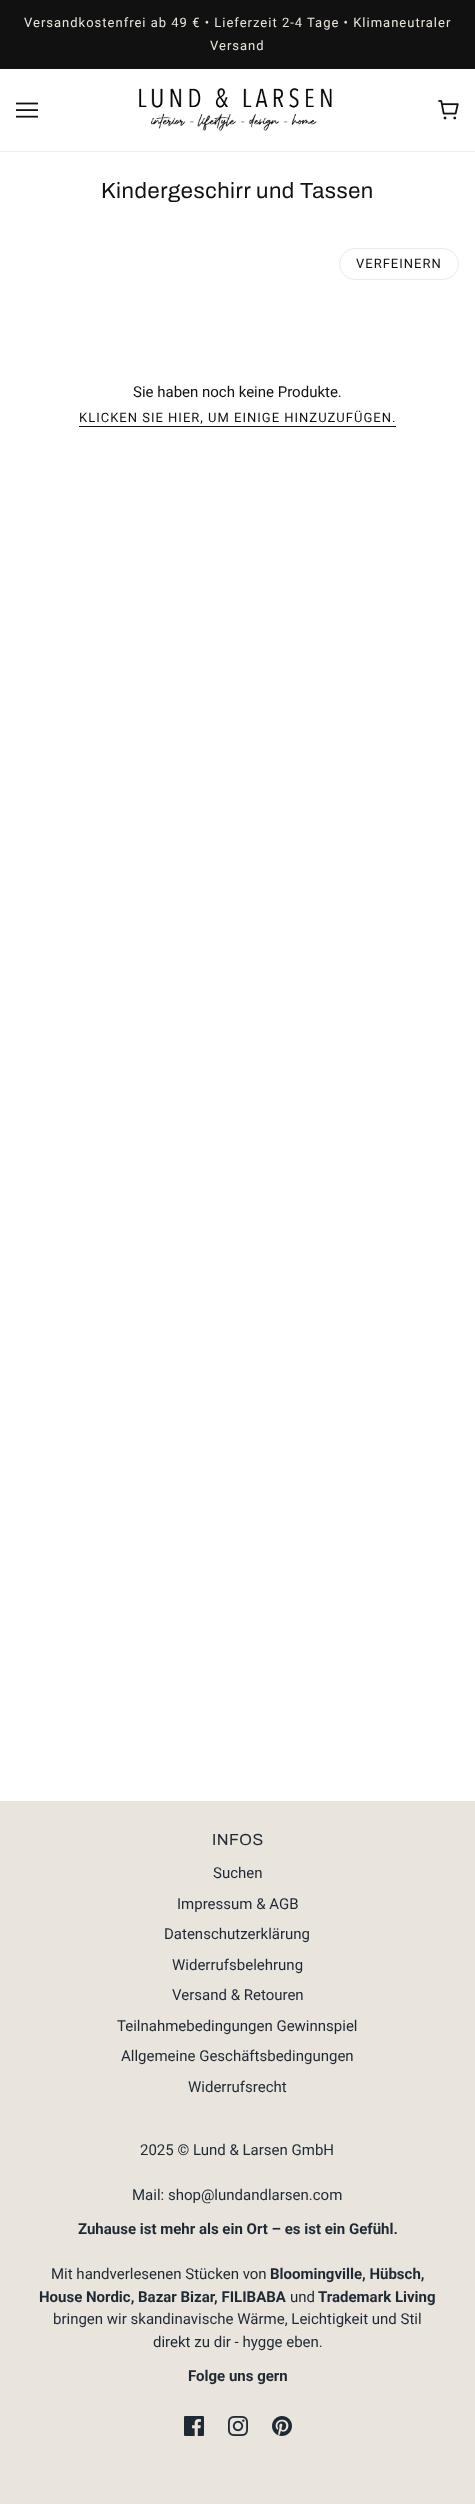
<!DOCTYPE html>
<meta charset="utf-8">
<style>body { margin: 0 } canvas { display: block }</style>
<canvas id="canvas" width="475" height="2504"></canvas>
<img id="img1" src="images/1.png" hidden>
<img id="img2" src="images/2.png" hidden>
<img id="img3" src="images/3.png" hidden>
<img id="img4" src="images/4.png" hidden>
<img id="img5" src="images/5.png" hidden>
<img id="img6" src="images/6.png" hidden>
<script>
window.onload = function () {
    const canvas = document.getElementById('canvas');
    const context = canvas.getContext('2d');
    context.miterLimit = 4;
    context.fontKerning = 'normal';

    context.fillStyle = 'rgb(255, 255, 255)';
    context.fillRect(0, 0, 475, 2504);
    context.fillStyle = 'rgb(17, 17, 17)';
    context.fillRect(0, 0, 475, 69);
    context.fillStyle = 'rgb(238, 238, 238)';
    context.fillRect(0, 151, 475, 1);
    context.drawImage(document.getElementById('img1'), 16, 102, 22, 16);
    context.drawImage(document.getElementById('img2'), 139, 88, 193, 43);
    context.drawImage(document.getElementById('img3'), 438, 100, 21, 20);
    context.beginPath();
    context.roundRect(339.5, 248.5, 119, 31, 15.5);
    context.strokeStyle = 'rgb(234, 234, 234)';
    context.stroke();
    context.fillStyle = 'rgb(17, 17, 17)';
    context.fillRect(79, 426, 317, 1);
    context.fillStyle = 'rgb(233, 228, 220)';
    context.fillRect(0, 1801, 475, 703);
    context.drawImage(document.getElementById('img4'), 184, 2416, 20, 20);
    context.drawImage(document.getElementById('img5'), 228, 2416, 20, 20);
    context.drawImage(document.getElementById('img6'), 272, 2416, 20, 20);
    context.letterSpacing = '1px';
    context.font = '13px Roboto';
    context.fillText('Versandkostenfrei ab 49 € • Lieferzeit 2-4 Tage • Klimaneutraler', 24, 27);
    context.fillText('Versand', 210, 50);
    context.letterSpacing = '0.55px';
    context.font = '22px Archivo';
    context.fillStyle = 'rgb(17, 17, 17)';
    context.fillText('Kindergeschirr und Tassen', 101, 198);
    context.letterSpacing = '1px';
    context.font = '13px Roboto';
    context.fillText('VERFEINERN', 356, 268);
    context.letterSpacing = '0px';
    context.font = '15px Roboto';
    context.fillText('Sie haben noch keine Produkte.', 133, 397);
    context.letterSpacing = '1px';
    context.font = '13px Roboto';
    context.fillText('KLICKEN SIE HIER, UM EINIGE HINZUZUFÜGEN.', 79, 422);
    context.letterSpacing = '0.5px';
    context.font = '16px Archivo';
    context.fillStyle = 'rgb(31, 41, 52)';
    context.fillText('INFOS', 212, 1845);
    context.letterSpacing = '0px';
    context.font = '15px Roboto';
    context.fillText('Suchen', 213, 1878);
    context.fillText('Impressum & AGB', 177, 1909);
    context.fillText('Datenschutzerklärung', 164, 1939);
    context.fillText('Widerrufsbelehrung', 172, 1970);
    context.fillText('Versand & Retouren', 172, 2000);
    context.fillText('Teilnahmebedingungen Gewinnspiel', 117, 2031);
    context.fillText('Allgemeine Geschäftsbedingungen', 121, 2061);
    context.fillText('Widerrufsrecht', 188, 2092);
    context.fillText('2025 © Lund & Larsen GmbH', 140, 2155);
    context.fillText('Mail: shop@lundandlarsen.com', 132, 2200);
    context.font = 'bold 15px Roboto';
    context.fillText('Zuhause ist mehr als ein Ort – es ist ein Gefühl.', 78, 2234);
    context.font = '15px Roboto';
    context.fillText('Mit handverlesenen Stücken von', 51, 2279);
    context.font = 'bold 15px Roboto';
    context.fillText('Bloomingville, Hübsch,', 270, 2279);
    context.fillText('House Nordic, Bazar Bizar, FILIBABA', 39, 2302);
    context.font = '15px Roboto';
    context.fillText('und', 290, 2302);
    context.font = 'bold 15px Roboto';
    context.fillText('Trademark Living', 318, 2302);
    context.font = '15px Roboto';
    context.fillText('bringen wir skandinavische Wärme, Leichtigkeit und Stil', 53, 2324);
    context.fillText('direkt zu dir - hygge eben.', 153, 2347);
    context.font = 'bold 15px Roboto';
    context.fillText('Folge uns gern', 188, 2381);
};
</script>
